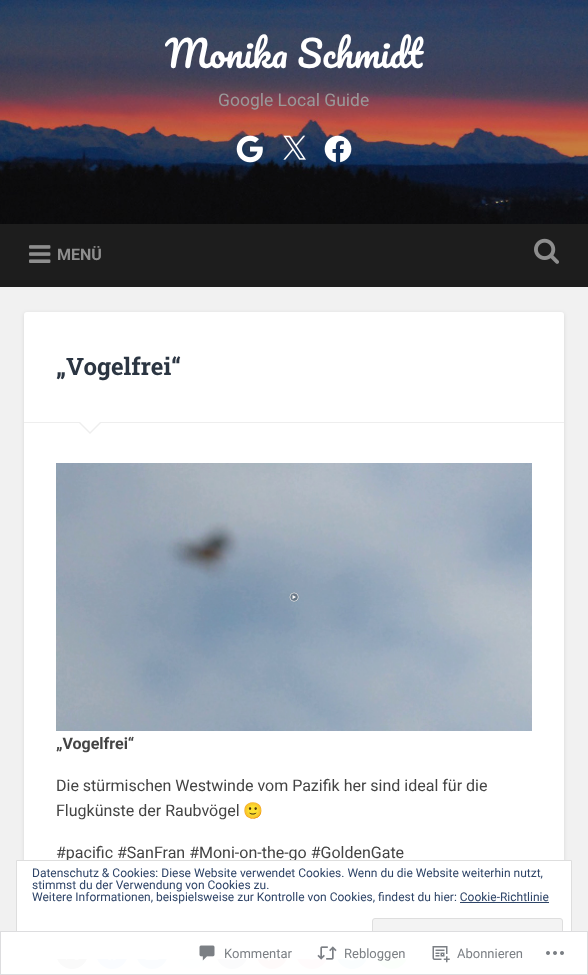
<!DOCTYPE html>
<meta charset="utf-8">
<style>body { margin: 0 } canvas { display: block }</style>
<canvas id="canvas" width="588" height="975"></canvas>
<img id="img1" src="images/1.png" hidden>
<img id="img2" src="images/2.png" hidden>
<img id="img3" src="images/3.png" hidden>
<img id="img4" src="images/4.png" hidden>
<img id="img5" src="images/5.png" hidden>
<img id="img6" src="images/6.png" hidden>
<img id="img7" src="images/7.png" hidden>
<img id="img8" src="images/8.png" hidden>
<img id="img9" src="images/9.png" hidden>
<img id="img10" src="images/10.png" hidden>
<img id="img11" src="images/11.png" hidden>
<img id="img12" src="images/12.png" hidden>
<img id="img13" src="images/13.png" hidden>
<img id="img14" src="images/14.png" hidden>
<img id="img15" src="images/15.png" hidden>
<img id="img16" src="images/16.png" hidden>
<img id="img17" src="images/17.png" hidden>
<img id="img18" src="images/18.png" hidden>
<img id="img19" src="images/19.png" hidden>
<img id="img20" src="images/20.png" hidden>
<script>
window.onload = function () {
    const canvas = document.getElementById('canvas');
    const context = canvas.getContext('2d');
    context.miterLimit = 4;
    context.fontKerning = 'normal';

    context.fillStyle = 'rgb(241, 241, 241)';
    context.fillRect(0, 0, 588, 975);
    context.drawImage(document.getElementById('img1'), 0, 0, 588, 224);
    context.drawImage(document.getElementById('img2'), 236, 135, 27, 28);
    context.drawImage(document.getElementById('img3'), 283, 135, 23, 25);
    context.drawImage(document.getElementById('img4'), 324, 135, 28, 28);
    context.fillStyle = 'rgb(29, 29, 29)';
    context.fillRect(0, 224, 588, 63);
    context.drawImage(document.getElementById('img5'), 29, 245, 22, 18);
    context.drawImage(document.getElementById('img6'), 534, 238, 25, 26);
    context.fillStyle = 'rgba(0, 0, 0, 0.1)';
    context.filter = 'blur(2px)';
    context.beginPath();
    context.roundRect(24, 313, 540, 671, 3);
    context.fill();
    context.filter = 'none';
    context.fillStyle = 'rgb(255, 255, 255)';
    context.beginPath();
    context.roundRect(24, 312, 540, 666, 3);
    context.fill();
    context.fillStyle = 'rgb(238, 238, 238)';
    context.fillRect(24, 422, 540, 1);
    context.beginPath();
    context.moveTo(78, 422);
    context.lineTo(102, 422);
    context.lineTo(90, 434);
    context.closePath();
    context.fill();
    context.fillStyle = 'rgb(255, 255, 255)';
    context.beginPath();
    context.moveTo(79, 421);
    context.lineTo(101, 421);
    context.lineTo(90, 432);
    context.closePath();
    context.fill();
    context.drawImage(document.getElementById('img7'), 56, 463, 476, 268);
    context.fillStyle = 'rgb(0, 0, 0)';
    context.beginPath();
    context.arc(72, 953, 16, 0, 2 * Math.PI);
    context.fill();
    context.drawImage(document.getElementById('img8'), 65, 959, 14, 1);
    context.fillStyle = 'rgb(8, 102, 255)';
    context.beginPath();
    context.arc(112, 953, 16, 0, 2 * Math.PI);
    context.fill();
    context.drawImage(document.getElementById('img9'), 107, 959, 10, 2);
    context.fillStyle = 'rgb(0, 119, 181)';
    context.beginPath();
    context.arc(152, 953, 16, 0, 2 * Math.PI);
    context.fill();
    context.drawImage(document.getElementById('img10'), 145, 959, 14, 1);
    context.fillStyle = 'rgb(206, 227, 248)';
    context.beginPath();
    context.arc(192, 953, 16, 0, 2 * Math.PI);
    context.fill();
    context.drawImage(document.getElementById('img11'), 190, 959, 4, 1);
    context.fillStyle = 'rgb(44, 71, 98)';
    context.beginPath();
    context.arc(232, 953, 16, 0, 2 * Math.PI);
    context.fill();
    context.drawImage(document.getElementById('img12'), 231, 959, 6, 1);
    context.fillStyle = 'rgb(202, 31, 39)';
    context.beginPath();
    context.arc(272, 953, 16, 0, 2 * Math.PI);
    context.fill();
    context.drawImage(document.getElementById('img13'), 268, 959, 2, 2);
    context.fillStyle = 'rgb(238, 64, 86)';
    context.beginPath();
    context.arc(312, 953, 16, 0, 2 * Math.PI);
    context.fill();
    context.drawImage(document.getElementById('img14'), 309, 959, 6, 1);
    context.fillStyle = 'rgb(0, 136, 204)';
    context.beginPath();
    context.arc(352, 953, 16, 0, 2 * Math.PI);
    context.fill();
    context.drawImage(document.getElementById('img15'), 347, 959, 10, 2);
    context.fillStyle = 'rgb(67, 216, 84)';
    context.beginPath();
    context.arc(392, 953, 16, 0, 2 * Math.PI);
    context.fill();
    context.drawImage(document.getElementById('img16'), 384, 959, 12, 2);
    context.font = '36px Pacifico';
    context.fillStyle = 'rgb(255, 255, 255)';
    context.fillText('Monika Schmidt', 165, 68);
    context.font = '17.5px Roboto';
    context.fillStyle = 'rgb(153, 153, 153)';
    context.fillText('Google Local Guide', 218, 106);
    context.font = 'bold 16px Roboto';
    context.fillStyle = 'rgb(142, 142, 142)';
    context.fillText('MENÜ', 57, 260);
    context.font = 'bold 24px Roboto Slab';
    context.fillStyle = 'rgb(43, 53, 66)';
    context.fillText('„Vogelfrei“', 56, 375);
    context.font = 'bold 16px Roboto';
    context.fillStyle = 'rgb(68, 68, 68)';
    context.fillText('„Vogelfrei“', 56, 749);
    context.font = '16px Roboto';
    context.fillText('Die stürmischen Westwinde vom Pazifik her sind ideal für die', 56, 791);
    context.fillText('Flugkünste der Raubvögel', 56, 816);
    context.font = '16px Noto Color Emoji';
    context.fillText('🙂', 243, 816);
    context.font = '16px Roboto';
    context.fillText('#pacific #SanFran #Moni-on-the-go #GoldenGate', 56, 858);
    context.fillStyle = 'rgb(255, 255, 255)';
    context.beginPath();
    context.rect(16.5, 860.5, 555, 98);
    context.fill();
    context.strokeStyle = 'rgb(222, 222, 222)';
    context.stroke();
    context.font = '12px Roboto';
    context.fillStyle = 'rgb(46, 68, 103)';
    context.fillText('Datenschutz & Cookies: Diese Website verwendet Cookies. Wenn du die Website weiterhin nutzt,', 32, 877);
    context.fillText('stimmst du der Verwendung von Cookies zu.', 32, 889);
    context.fillText('Weitere Informationen, beispielsweise zur Kontrolle von Cookies, findest du hier: Cookie-Richtlinie', 32, 901);
    context.fillRect(460, 902, 89, 1);
    context.fillStyle = 'rgb(243, 243, 243)';
    context.beginPath();
    context.roundRect(372.5, 918.5, 190, 31, 2.5);
    context.fill();
    context.stroke();
    context.fillStyle = 'rgba(255, 255, 255, 0.98)';
    context.fillRect(0, 931, 588, 44);
    context.strokeStyle = 'rgba(220, 220, 222, 0.98)';
    context.strokeRect(0.5, 931.5, 587, 43);
    context.drawImage(document.getElementById('img17'), 199, 945, 16, 16);
    context.font = '13px Roboto';
    context.fillStyle = 'rgb(123, 127, 132)';
    context.fillText('Kommentar', 224, 958);
    context.drawImage(document.getElementById('img18'), 317, 946, 20, 14);
    context.fillText('Rebloggen', 344, 958);
    context.drawImage(document.getElementById('img19'), 432, 946, 18, 17);
    context.fillText('Abonnieren', 457, 958);
    context.drawImage(document.getElementById('img20'), 546, 951, 18, 4);
};
</script>
